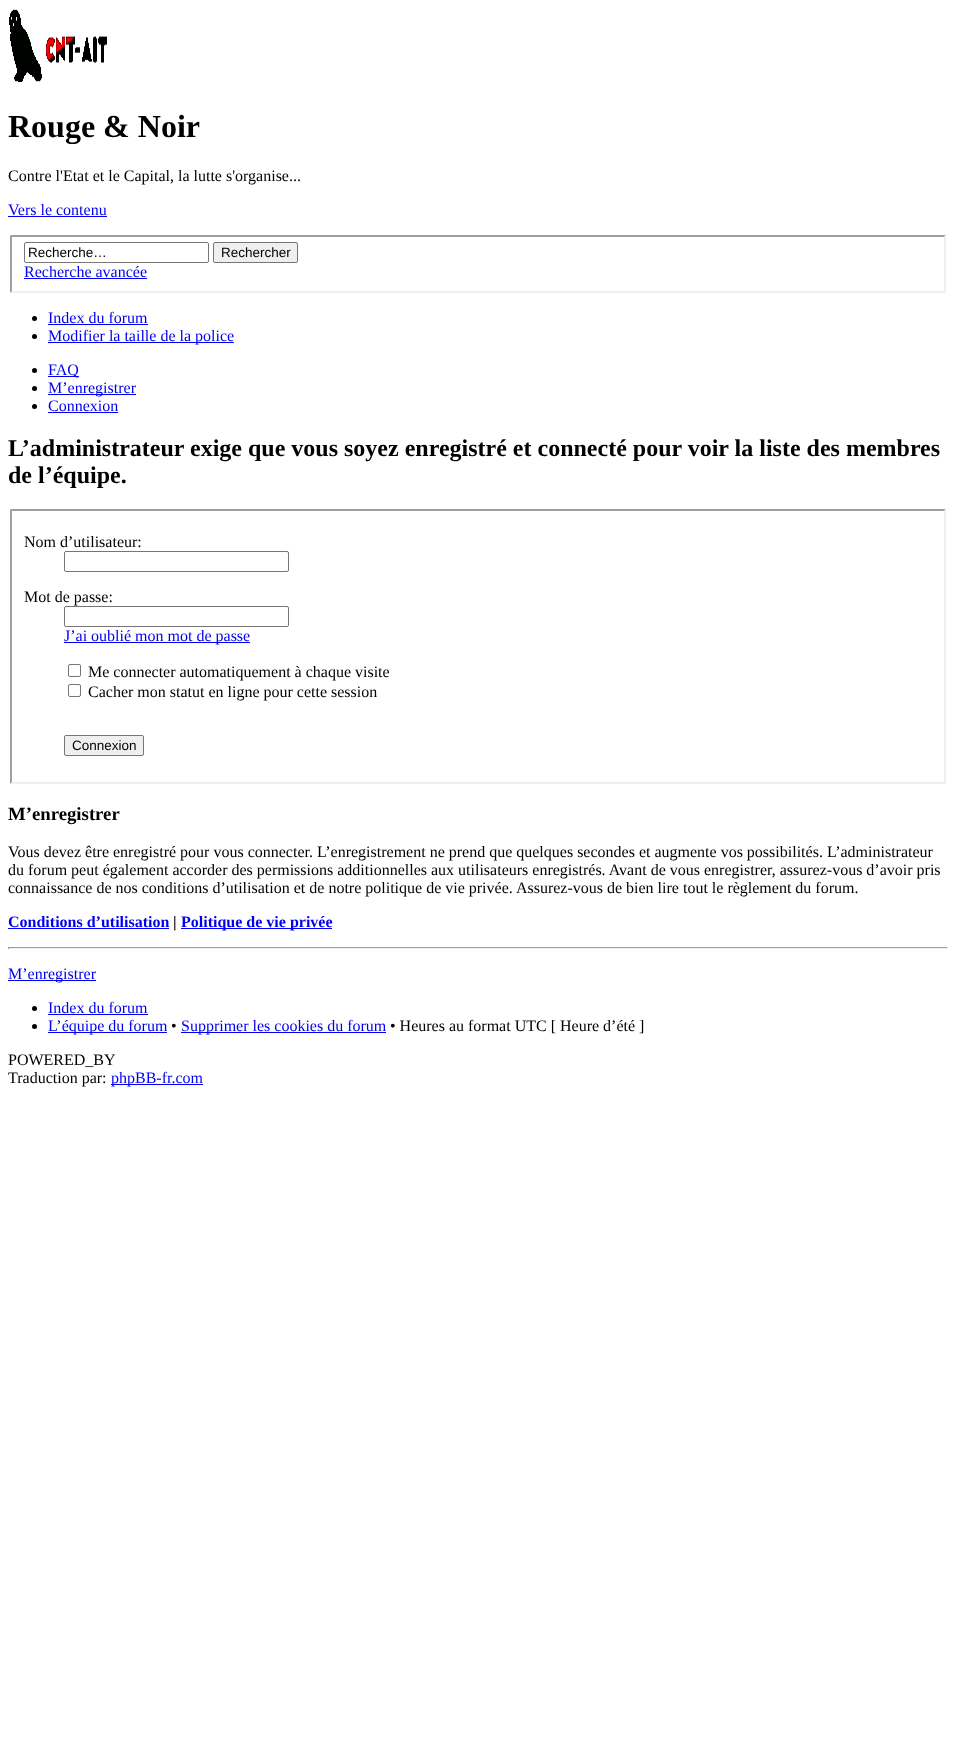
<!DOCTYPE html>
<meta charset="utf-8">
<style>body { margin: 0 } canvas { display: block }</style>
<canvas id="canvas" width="956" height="1746"></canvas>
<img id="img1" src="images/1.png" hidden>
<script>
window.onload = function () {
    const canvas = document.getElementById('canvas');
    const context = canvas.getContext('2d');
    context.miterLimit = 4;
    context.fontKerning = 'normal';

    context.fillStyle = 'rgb(255, 255, 255)';
    context.fillRect(0, 0, 956, 1746);
    context.drawImage(document.getElementById('img1'), 9, 9, 98, 74);
    context.fillStyle = 'rgb(0, 0, 238)';
    context.fillRect(8, 216, 99, 1);
    context.fillStyle = 'rgb(159, 159, 159)';
    context.beginPath();
    context.moveTo(10, 235);
    context.lineTo(946, 235);
    context.lineTo(944, 237);
    context.lineTo(12, 237);
    context.closePath();
    context.fill();
    context.fillStyle = 'rgb(239, 239, 239)';
    context.beginPath();
    context.moveTo(946, 235);
    context.lineTo(946, 293);
    context.lineTo(944, 291);
    context.lineTo(944, 237);
    context.closePath();
    context.fill();
    context.beginPath();
    context.moveTo(946, 293);
    context.lineTo(10, 293);
    context.lineTo(12, 291);
    context.lineTo(944, 291);
    context.closePath();
    context.fill();
    context.fillStyle = 'rgb(159, 159, 159)';
    context.beginPath();
    context.moveTo(10, 293);
    context.lineTo(10, 235);
    context.lineTo(12, 237);
    context.lineTo(12, 291);
    context.closePath();
    context.fill();
    context.beginPath();
    context.roundRect(24.5, 242.5, 184, 20, 1.5);
    context.strokeStyle = 'rgb(118, 118, 118)';
    context.stroke();
    context.fillStyle = 'rgb(239, 239, 239)';
    context.beginPath();
    context.roundRect(213.5, 242.5, 84, 20, 1.5);
    context.fill();
    context.stroke();
    context.fillStyle = 'rgb(0, 0, 238)';
    context.fillRect(24, 278, 123, 1);
    context.fillStyle = 'rgb(0, 0, 0)';
    context.beginPath();
    context.arc(34.5, 318.5, 2.5, 0, 2 * Math.PI);
    context.fill();
    context.fillStyle = 'rgb(0, 0, 238)';
    context.fillRect(48, 324, 100, 1);
    context.fillStyle = 'rgb(0, 0, 0)';
    context.beginPath();
    context.arc(34.5, 336.5, 2.5, 0, 2 * Math.PI);
    context.fill();
    context.fillStyle = 'rgb(0, 0, 238)';
    context.fillRect(48, 342, 186, 1);
    context.fillStyle = 'rgb(0, 0, 0)';
    context.beginPath();
    context.arc(34.5, 370.5, 2.5, 0, 2 * Math.PI);
    context.fill();
    context.fillStyle = 'rgb(0, 0, 238)';
    context.fillRect(48, 376, 31, 1);
    context.fillStyle = 'rgb(0, 0, 0)';
    context.beginPath();
    context.arc(34.5, 388.5, 2.5, 0, 2 * Math.PI);
    context.fill();
    context.fillStyle = 'rgb(0, 0, 238)';
    context.fillRect(48, 394, 88, 1);
    context.fillStyle = 'rgb(0, 0, 0)';
    context.beginPath();
    context.arc(34.5, 406.5, 2.5, 0, 2 * Math.PI);
    context.fill();
    context.fillStyle = 'rgb(0, 0, 238)';
    context.fillRect(48, 412, 70, 1);
    context.fillStyle = 'rgb(159, 159, 159)';
    context.beginPath();
    context.moveTo(10, 509);
    context.lineTo(946, 509);
    context.lineTo(944, 511);
    context.lineTo(12, 511);
    context.closePath();
    context.fill();
    context.fillStyle = 'rgb(239, 239, 239)';
    context.beginPath();
    context.moveTo(946, 509);
    context.lineTo(946, 784);
    context.lineTo(944, 782);
    context.lineTo(944, 511);
    context.closePath();
    context.fill();
    context.beginPath();
    context.moveTo(946, 784);
    context.lineTo(10, 784);
    context.lineTo(12, 782);
    context.lineTo(944, 782);
    context.closePath();
    context.fill();
    context.fillStyle = 'rgb(159, 159, 159)';
    context.beginPath();
    context.moveTo(10, 784);
    context.lineTo(10, 509);
    context.lineTo(12, 511);
    context.lineTo(12, 782);
    context.closePath();
    context.fill();
    context.beginPath();
    context.roundRect(64.5, 551.5, 224, 20, 1.5);
    context.stroke();
    context.beginPath();
    context.roundRect(64.5, 606.5, 224, 20, 1.5);
    context.stroke();
    context.fillStyle = 'rgb(0, 0, 238)';
    context.fillRect(64, 642, 186, 1);
    context.beginPath();
    context.roundRect(68.5, 664.5, 12, 12, 1.5);
    context.stroke();
    context.beginPath();
    context.roundRect(68.5, 684.5, 12, 12, 1.5);
    context.stroke();
    context.fillStyle = 'rgb(239, 239, 239)';
    context.beginPath();
    context.roundRect(64.5, 735.5, 79, 20, 1.5);
    context.fill();
    context.stroke();
    context.fillStyle = 'rgb(0, 0, 238)';
    context.fillRect(8, 928, 161, 1);
    context.fillRect(181, 928, 151, 1);
    context.fillStyle = 'rgb(159, 159, 159)';
    context.fillRect(8, 947, 940, 1);
    context.fillStyle = 'rgb(238, 238, 238)';
    context.fillRect(947, 947, 1, 2);
    context.fillRect(8, 948, 940, 1);
    context.fillStyle = 'rgb(159, 159, 159)';
    context.fillRect(8, 947, 1, 2);
    context.fillStyle = 'rgb(0, 0, 238)';
    context.fillRect(8, 980, 88, 1);
    context.fillStyle = 'rgb(0, 0, 0)';
    context.beginPath();
    context.arc(34.5, 1008.5, 2.5, 0, 2 * Math.PI);
    context.fill();
    context.fillStyle = 'rgb(0, 0, 238)';
    context.fillRect(48, 1014, 100, 1);
    context.fillStyle = 'rgb(0, 0, 0)';
    context.beginPath();
    context.arc(34.5, 1026.5, 2.5, 0, 2 * Math.PI);
    context.fill();
    context.fillStyle = 'rgb(0, 0, 238)';
    context.fillRect(48, 1032, 119, 1);
    context.fillRect(181, 1032, 205, 1);
    context.fillRect(111, 1084, 92, 1);
    context.font = 'bold 32px Liberation Serif';
    context.fillStyle = 'rgb(0, 0, 0)';
    context.fillText('Rouge & Noir', 8, 137);
    context.font = '16px Liberation Serif';
    context.fillText('Contre l\'Etat et le Capital, la lutte s\'organise...', 8, 181);
    context.fillStyle = 'rgb(0, 0, 238)';
    context.fillText('Vers le contenu', 8, 215);
    context.font = '13.5px Liberation Sans';
    context.fillStyle = 'rgb(0, 0, 0)';
    context.fillText('Recherche…', 28, 257);
    context.fillText('Rechercher', 221, 257);
    context.font = '16px Liberation Serif';
    context.fillStyle = 'rgb(0, 0, 238)';
    context.fillText('Recherche avancée', 24, 277);
    context.fillText('Index du forum', 48, 323);
    context.fillText('Modifier la taille de la police', 48, 341);
    context.fillText('FAQ', 48, 375);
    context.fillText('M’enregistrer', 48, 393);
    context.fillText('Connexion', 48, 411);
    context.font = 'bold 24px Liberation Serif';
    context.fillStyle = 'rgb(0, 0, 0)';
    context.fillText('L’administrateur exige que vous soyez enregistré et connecté pour voir la liste des membres', 8, 456);
    context.fillText('de l’équipe.', 8, 483);
    context.font = '16px Liberation Serif';
    context.fillText('Nom d’utilisateur:', 24, 547);
    context.fillText('Mot de passe:', 24, 602);
    context.fillStyle = 'rgb(0, 0, 238)';
    context.fillText('J’ai oublié mon mot de passe', 64, 641);
    context.fillStyle = 'rgb(0, 0, 0)';
    context.fillText('Me connecter automatiquement à chaque visite', 88, 677);
    context.fillText('Cacher mon statut en ligne pour cette session', 88, 697);
    context.font = '13.5px Liberation Sans';
    context.fillText('Connexion', 72, 750);
    context.font = 'bold 18.75px Liberation Serif';
    context.fillText('M’enregistrer', 8, 820);
    context.font = '16px Liberation Serif';
    context.fillText('Vous devez être enregistré pour vous connecter. L’enregistrement ne prend que quelques secondes et augmente vos possibilités. L’administrateur', 8, 857);
    context.fillText('du forum peut également accorder des permissions additionnelles aux utilisateurs enregistrés. Avant de vous enregistrer, assurez-vous d’avoir pris', 8, 875);
    context.fillText('connaissance de nos conditions d’utilisation et de notre politique de vie privée. Assurez-vous de bien lire tout le règlement du forum.', 8, 893);
    context.font = 'bold 16px Liberation Serif';
    context.fillStyle = 'rgb(0, 0, 238)';
    context.fillText('Conditions d’utilisation', 8, 927);
    context.fillStyle = 'rgb(0, 0, 0)';
    context.fillText('|', 173, 927);
    context.fillStyle = 'rgb(0, 0, 238)';
    context.fillText('Politique de vie privée', 181, 927);
    context.font = '16px Liberation Serif';
    context.fillText('M’enregistrer', 8, 979);
    context.fillText('Index du forum', 48, 1013);
    context.fillText('L’équipe du forum', 48, 1031);
    context.fillStyle = 'rgb(0, 0, 0)';
    context.fillText('•', 171, 1031);
    context.fillStyle = 'rgb(0, 0, 238)';
    context.fillText('Supprimer les cookies du forum', 181, 1031);
    context.fillStyle = 'rgb(0, 0, 0)';
    context.fillText('• Heures au format UTC [ Heure d’été ]', 390, 1031);
    context.fillText('POWERED_BY', 8, 1065);
    context.fillText('Traduction par:', 8, 1083);
    context.fillStyle = 'rgb(0, 0, 238)';
    context.fillText('phpBB-fr.com', 111, 1083);
};
</script>
